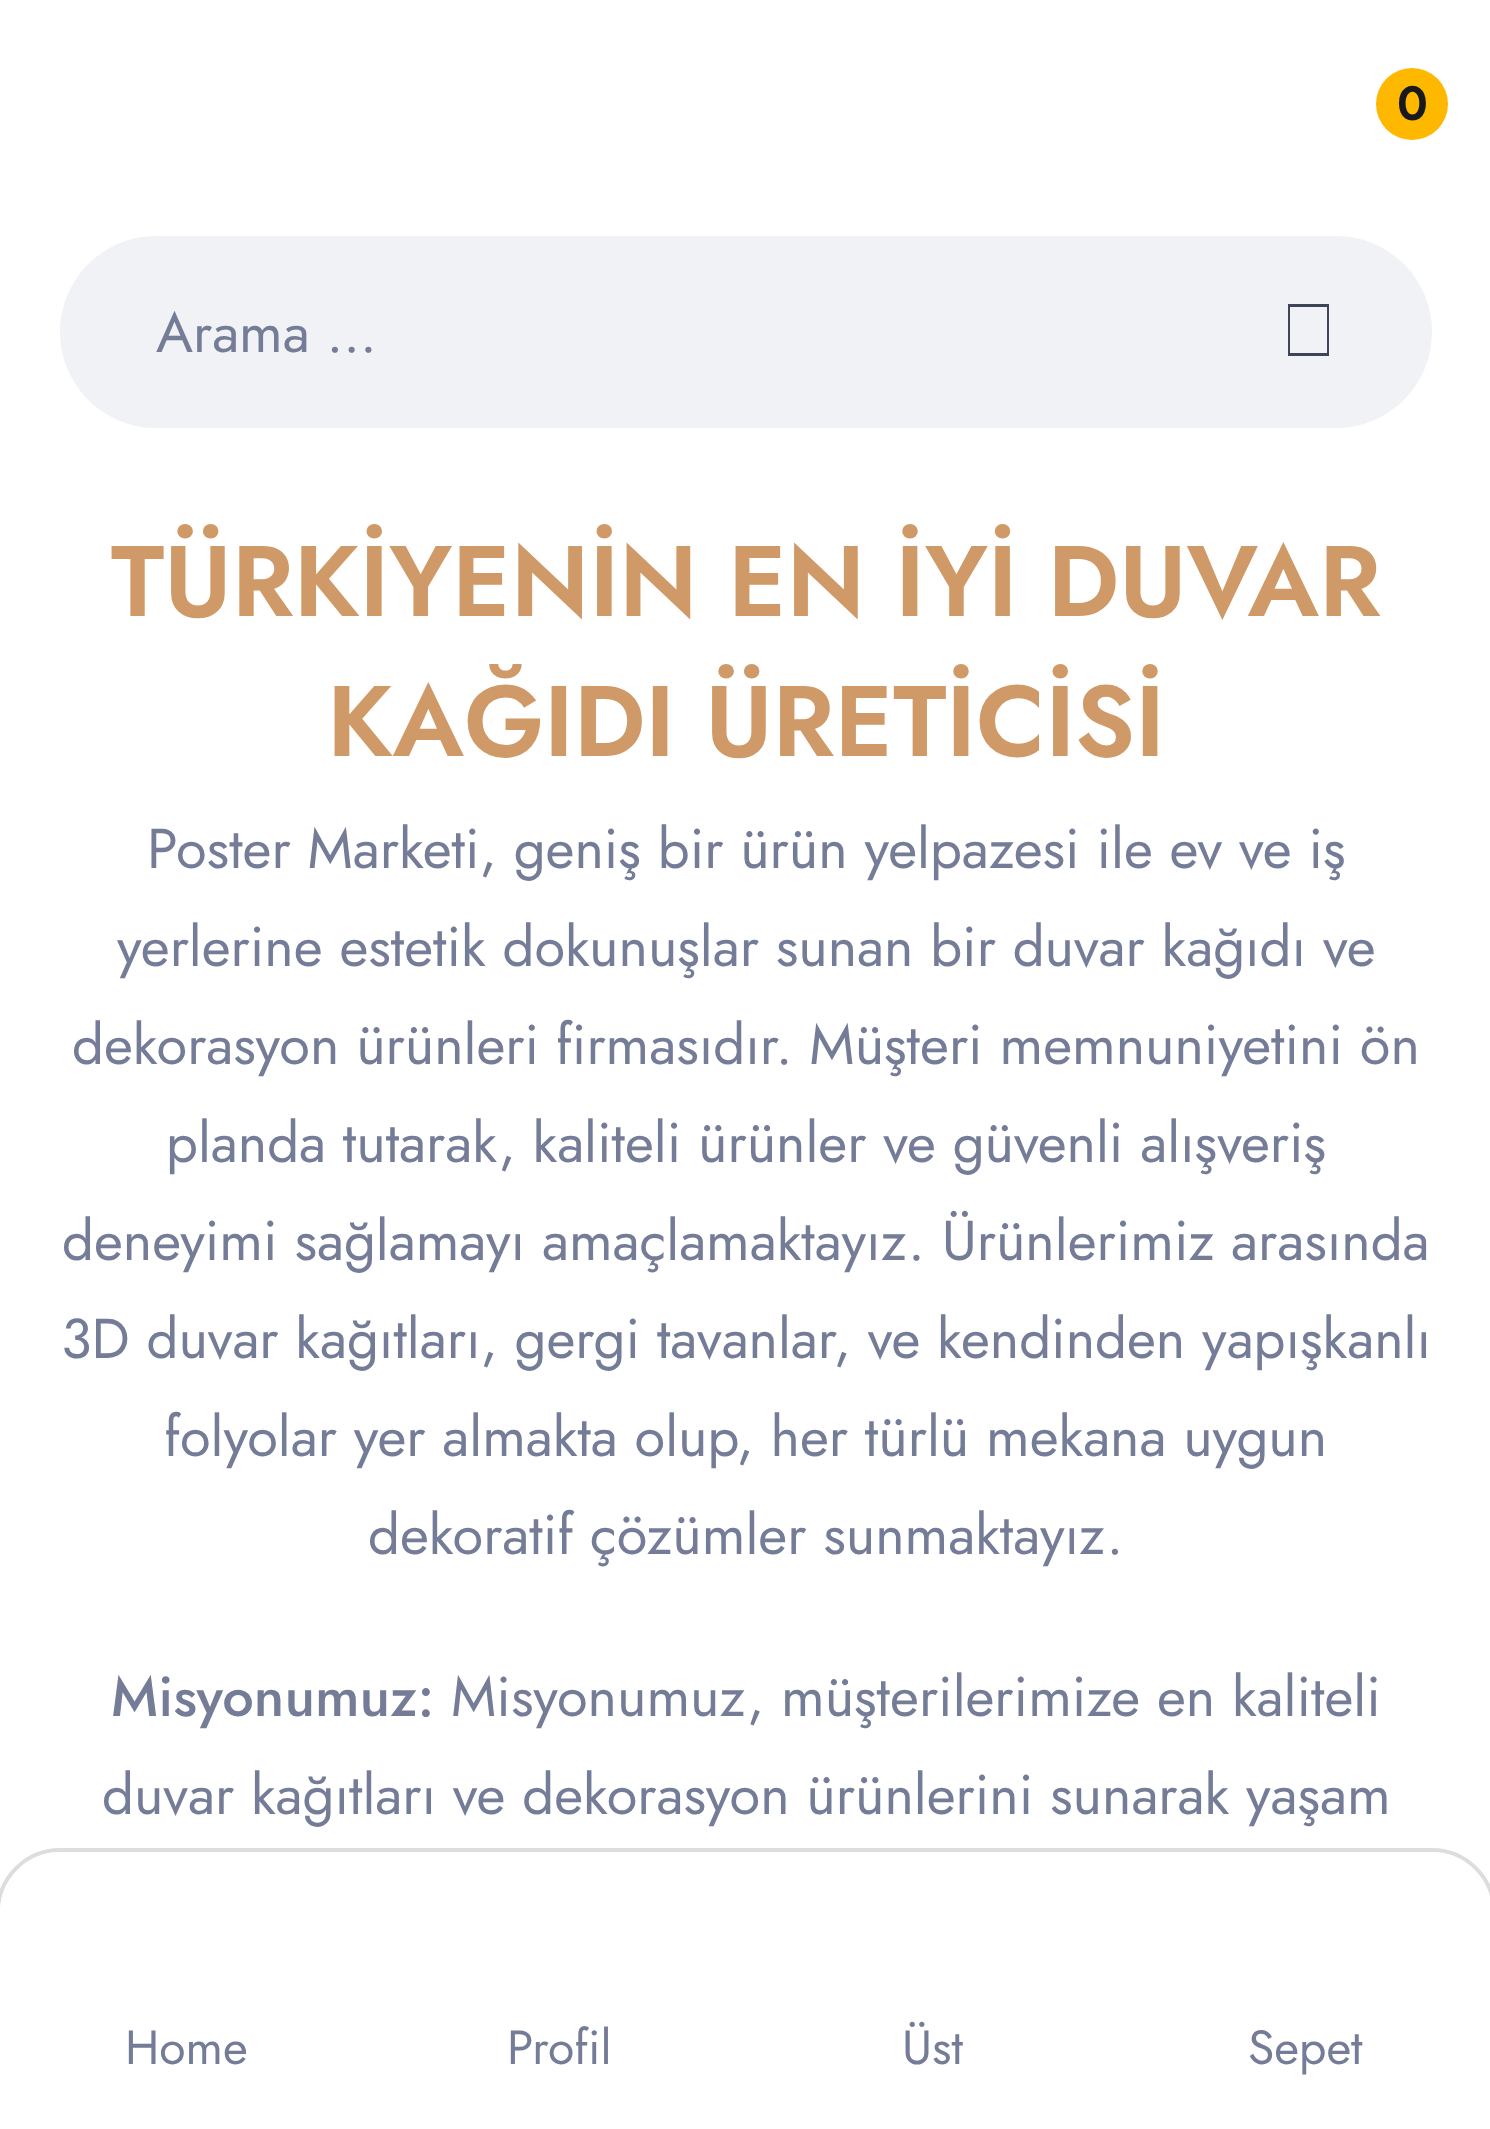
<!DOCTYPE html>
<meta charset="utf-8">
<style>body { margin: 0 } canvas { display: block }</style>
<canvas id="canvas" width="1490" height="2129"></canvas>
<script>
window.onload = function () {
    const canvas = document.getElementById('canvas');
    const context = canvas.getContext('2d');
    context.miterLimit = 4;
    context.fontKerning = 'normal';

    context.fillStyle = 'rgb(255, 255, 255)';
    context.fillRect(0, 0, 1490, 2129);
    context.fillStyle = 'rgb(255, 184, 0)';
    context.beginPath();
    context.arc(1412, 104, 36, 0, 2 * Math.PI);
    context.fill();
    context.fillStyle = 'rgb(240, 242, 245)';
    context.beginPath();
    context.roundRect(60, 236, 1372, 192, 96);
    context.fill();
    context.fillStyle = 'rgb(62, 68, 90)';
    context.beginPath();
    context.moveTo(1288, 304);
    context.lineTo(1329, 304);
    context.lineTo(1329, 356);
    context.lineTo(1288, 356);
    context.closePath();
    context.moveTo(1290, 307);
    context.lineTo(1290, 353);
    context.lineTo(1327, 353);
    context.lineTo(1327, 307);
    context.closePath();
    context.fill();
    context.beginPath();
    context.moveTo(60, 1850);
    context.lineTo(1432, 1850);
    context.bezierCurveTo(1466, 1850, 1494, 1878, 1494, 1912);
    context.lineTo(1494, 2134);
    context.lineTo(-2, 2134);
    context.lineTo(-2, 1912);
    context.bezierCurveTo(-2, 1878, 26, 1850, 60, 1850);
    context.closePath();
    context.strokeStyle = 'rgb(222, 220, 220)';
    context.lineWidth = 4;
    context.stroke();
    context.fillStyle = 'rgb(255, 255, 255)';
    context.beginPath();
    context.moveTo(60, 1852);
    context.lineTo(1432, 1852);
    context.bezierCurveTo(1465, 1852, 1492, 1879, 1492, 1912);
    context.lineTo(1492, 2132);
    context.lineTo(0, 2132);
    context.lineTo(0, 1912);
    context.bezierCurveTo(0, 1879, 27, 1852, 60, 1852);
    context.closePath();
    context.fill();
    context.font = '600 48px Jost';
    context.fillStyle = 'rgb(24, 25, 27)';
    context.fillText('0', 1397, 120);
    context.font = '56px Jost';
    context.fillStyle = 'rgb(116, 124, 151)';
    context.fillText('Arama ...', 156, 352);
    context.font = '48px Jost';
    context.fillText('Home', 125, 2064);
    context.fillText('Profil', 507, 2064);
    context.fillText('Üst', 902, 2064);
    context.fillText('Sepet', 1248, 2064);
    context.font = '600 100px Jost';
    context.fillStyle = 'rgb(208, 154, 104)';
    context.fillText('TÜRKİYENİN EN İYİ DUVAR', 111, 616);
    context.fillText('KAĞIDI ÜRETİCİSİ', 327, 756);
    context.font = '56px Jost';
    context.fillStyle = 'rgb(116, 124, 151)';
    context.fillText('Poster Marketi, geniş bir ürün yelpazesi ile ev ve iş', 147, 868);
    context.fillText('yerlerine estetik dokunuşlar sunan bir duvar kağıdı ve', 117, 966);
    context.fillText('dekorasyon ürünleri firmasıdır. Müşteri memnuniyetini ön', 72, 1064);
    context.fillText('planda tutarak, kaliteli ürünler ve güvenli alışveriş', 166, 1162);
    context.fillText('deneyimi sağlamayı amaçlamaktayız. Ürünlerimiz arasında', 62, 1260);
    context.fillText('3D duvar kağıtları, gergi tavanlar, ve kendinden yapışkanlı', 61, 1358);
    context.fillText('folyolar yer almakta olup, her türlü mekana uygun', 164, 1456);
    context.fillText('dekoratif çözümler sunmaktayız.', 368, 1554);
    context.font = '500 56px Jost';
    context.fillText('Misyonumuz:', 111, 1716);
    context.font = '56px Jost';
    context.fillText('Misyonumuz, müşterilerimize en kaliteli', 451, 1716);
    context.fillText('duvar kağıtları ve dekorasyon ürünlerini sunarak yaşam', 102, 1814);
};
</script>
